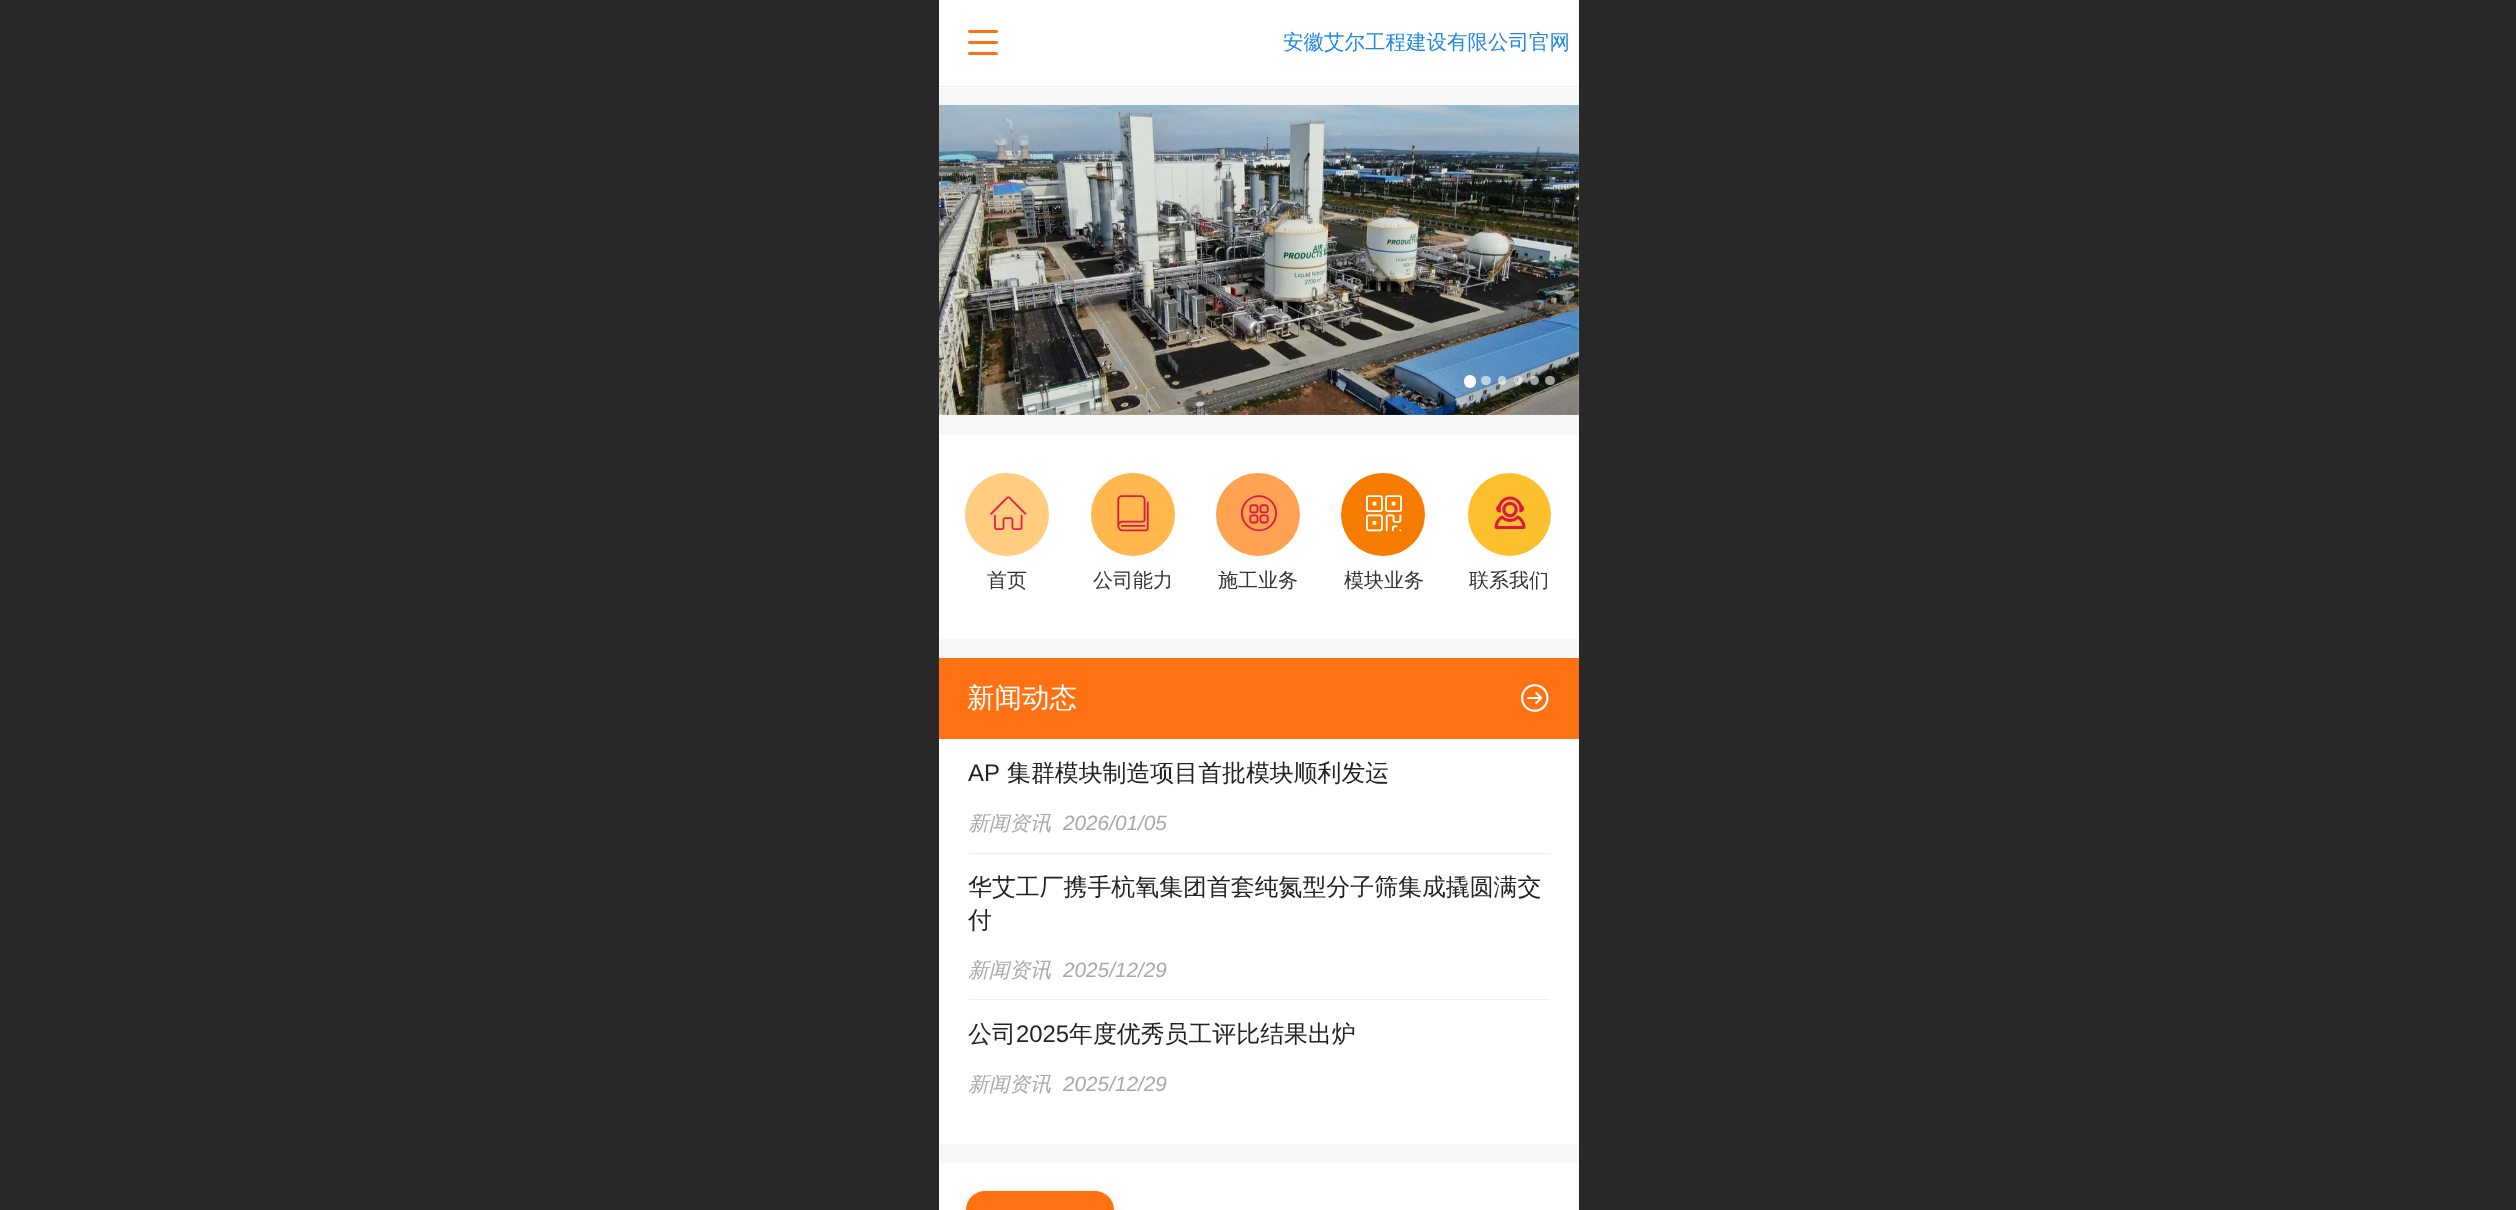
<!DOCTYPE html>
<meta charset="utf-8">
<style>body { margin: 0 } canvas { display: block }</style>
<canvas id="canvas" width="2516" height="1210"></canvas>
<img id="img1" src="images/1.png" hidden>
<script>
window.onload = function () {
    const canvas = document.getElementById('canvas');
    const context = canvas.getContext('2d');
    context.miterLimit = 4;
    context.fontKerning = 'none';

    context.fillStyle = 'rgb(248, 248, 248)';
    context.fillRect(0, 0, 2516, 1210);
    context.fillStyle = 'rgb(40, 40, 40)';
    context.fillRect(0, 0, 939, 1210);
    context.fillStyle = 'rgb(255, 255, 255)';
    context.fillRect(939, 0, 640, 88);
    context.fillStyle = 'rgb(238, 238, 238)';
    context.fillRect(939, 86, 640, 1);
    context.drawImage(document.getElementById('img1'), 939, 105, 640, 310);
    context.fillStyle = 'rgb(255, 255, 255)';
    context.beginPath();
    context.roundRect(1464, 375, 12, 13, 6);
    context.fill();
    context.fillStyle = 'rgba(255, 255, 255, 0.6)';
    context.beginPath();
    context.roundRect(1481, 376, 10, 9, 4.5);
    context.fill();
    context.beginPath();
    context.roundRect(1498, 376, 8, 9, 4);
    context.fill();
    context.beginPath();
    context.arc(1518.5, 380.5, 4.5, 0, 2 * Math.PI);
    context.fill();
    context.beginPath();
    context.arc(1534.5, 380.5, 4.5, 0, 2 * Math.PI);
    context.fill();
    context.beginPath();
    context.roundRect(1545, 376, 10, 9, 4.5);
    context.fill();
    context.fillStyle = 'rgb(255, 255, 255)';
    context.fillRect(939, 434, 640, 205);
    context.fillStyle = 'rgb(255, 204, 128)';
    context.beginPath();
    context.roundRect(965, 473, 84, 83, 41.5);
    context.fill();
    context.fillStyle = 'rgb(255, 183, 78)';
    context.beginPath();
    context.roundRect(1091, 473, 84, 83, 41.5);
    context.fill();
    context.fillStyle = 'rgb(255, 163, 82)';
    context.beginPath();
    context.roundRect(1216, 473, 84, 83, 41.5);
    context.fill();
    context.fillStyle = 'rgb(246, 124, 1)';
    context.beginPath();
    context.roundRect(1341, 473, 84, 83, 41.5);
    context.fill();
    context.fillStyle = 'rgb(252, 192, 46)';
    context.beginPath();
    context.arc(1509.5, 514.5, 41.5, 0, 2 * Math.PI);
    context.fill();
    context.fillStyle = 'rgb(255, 114, 20)';
    context.fillRect(939, 658, 640, 81);
    context.fillStyle = 'rgb(255, 255, 255)';
    context.fillRect(939, 739, 640, 405);
    context.fillStyle = 'rgb(238, 238, 238)';
    context.fillRect(969, 853, 580, 1);
    context.fillRect(969, 999, 580, 1);
    context.fillStyle = 'rgb(255, 255, 255)';
    context.fillRect(939, 1163, 640, 47);
    context.save();
    context.beginPath();
    context.rect(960, 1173, 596, 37);
    context.clip();
    context.fillStyle = 'rgba(255, 114, 20, 0.35)';
    context.filter = 'blur(7.5px)';
    context.beginPath();
    context.roundRect(966, 1198, 148, 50, 25);
    context.fill();
    context.filter = 'none';
    context.restore();
    context.fillStyle = 'rgb(255, 114, 20)';
    context.beginPath();
    context.roundRect(966, 1191, 148, 19, [25, 25, 0, 0]);
    context.fill();
    context.fillStyle = 'rgb(40, 40, 40)';
    context.fillRect(1579, 0, 937, 1210);
    context.font = '30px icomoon';
    context.fillStyle = 'rgb(255, 114, 20)';
    context.fillText('򰌲', 968, 55);
    context.font = '500 20.5px WenQuanYi Zen Hei';
    context.fillStyle = 'rgb(31, 135, 232)';
    context.fillText('安徽艾尔工程建设有限公司官网', 1283, 49);
    context.font = '36px icomoon';
    context.fillStyle = 'rgb(235, 29, 78)';
    context.fillText('򠡀', 990, 529);
    context.font = '500 20px WenQuanYi Zen Hei';
    context.fillStyle = 'rgb(51, 51, 51)';
    context.fillText('首页', 987, 587);
    context.font = '36px icomoon';
    context.fillStyle = 'rgb(216, 27, 67)';
    context.fillText('򠖓', 1115, 529);
    context.font = '500 20px WenQuanYi Zen Hei';
    context.fillStyle = 'rgb(51, 51, 51)';
    context.fillText('公司能力', 1093, 587);
    context.font = '36px icomoon';
    context.fillStyle = 'rgb(216, 27, 67)';
    context.fillText('򠡡', 1241, 529);
    context.font = '500 20px WenQuanYi Zen Hei';
    context.fillStyle = 'rgb(51, 51, 51)';
    context.fillText('施工业务', 1218, 587);
    context.font = '36px icomoon';
    context.fillStyle = 'rgb(255, 255, 255)';
    context.fillText('򠢈', 1366, 529);
    context.font = '500 20px WenQuanYi Zen Hei';
    context.fillStyle = 'rgb(51, 51, 51)';
    context.fillText('模块业务', 1344, 587);
    context.font = '36px icomoon';
    context.fillStyle = 'rgb(216, 27, 67)';
    context.fillText('󩄀', 1492, 529);
    context.font = '500 20px WenQuanYi Zen Hei';
    context.fillStyle = 'rgb(51, 51, 51)';
    context.fillText('联系我们', 1469, 587);
    context.font = '500 27.5px WenQuanYi Zen Hei';
    context.fillStyle = 'rgb(255, 255, 255)';
    context.fillText('新闻动态', 967, 707);
    context.font = '27.5px icomoon';
    context.fillText('򠈃', 1521, 710);
    context.font = '23.9px Liberation Sans';
    context.fillStyle = 'rgb(34, 34, 34)';
    context.fillText('AP', 968, 781);
    context.font = '500 23.9px WenQuanYi Zen Hei';
    context.fillText('集群模块制造项目首批模块顺利发运', 1007, 781);
    context.save();
    context.beginPath();
    context.rect(969, 814, 94, 20);
    context.clip();
    context.font = 'italic 500 20.75px WenQuanYi Zen Hei';
    context.fillStyle = 'rgb(169, 169, 169)';
    context.fillText('新闻资讯', 968, 830);
    context.restore();
    context.font = 'italic 20.75px Liberation Sans';
    context.fillStyle = 'rgb(169, 169, 169)';
    context.fillText('2026/01/05', 1063, 830);
    context.font = '500 23.9px WenQuanYi Zen Hei';
    context.fillStyle = 'rgb(34, 34, 34)';
    context.fillText('华艾工厂携手杭氧集团首套纯氮型分子筛集成撬圆满交', 968, 895);
    context.fillText('付', 968, 928);
    context.save();
    context.beginPath();
    context.rect(969, 960, 94, 21);
    context.clip();
    context.font = 'italic 500 20.75px WenQuanYi Zen Hei';
    context.fillStyle = 'rgb(169, 169, 169)';
    context.fillText('新闻资讯', 968, 977);
    context.restore();
    context.font = 'italic 20.75px Liberation Sans';
    context.fillStyle = 'rgb(169, 169, 169)';
    context.fillText('2025/12/29', 1063, 977);
    context.font = '500 23.9px WenQuanYi Zen Hei';
    context.fillStyle = 'rgb(34, 34, 34)';
    context.fillText('公司', 968, 1042);
    context.font = '23.9px Liberation Sans';
    context.fillText('2025', 1016, 1042);
    context.font = '500 23.9px WenQuanYi Zen Hei';
    context.fillText('年度优秀员工评比结果出炉', 1069, 1042);
    context.save();
    context.beginPath();
    context.rect(969, 1075, 94, 20);
    context.clip();
    context.font = 'italic 500 20.75px WenQuanYi Zen Hei';
    context.fillStyle = 'rgb(169, 169, 169)';
    context.fillText('新闻资讯', 968, 1091);
    context.restore();
    context.font = 'italic 20.75px Liberation Sans';
    context.fillStyle = 'rgb(169, 169, 169)';
    context.fillText('2025/12/29', 1063, 1091);
};
</script>
